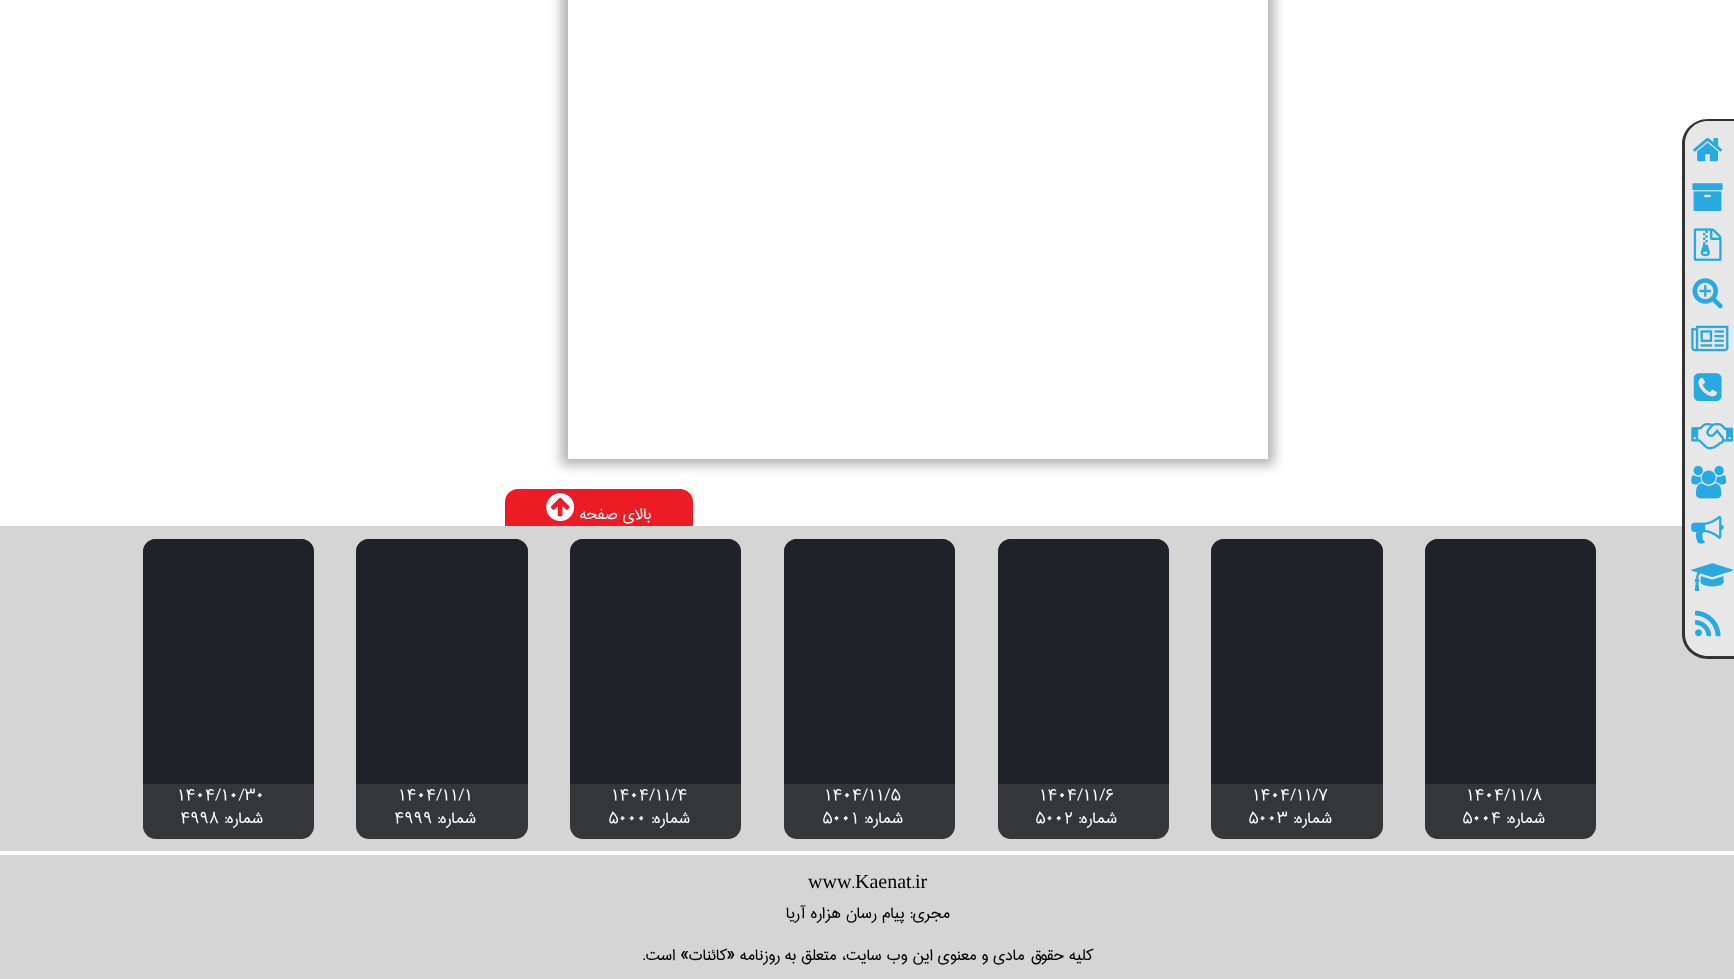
<!DOCTYPE html>
<meta charset="utf-8">
<style>body { margin: 0 } canvas { display: block }</style>
<canvas id="canvas" width="1734" height="979"></canvas>
<img id="img1" src="images/1.png" hidden>
<img id="img2" src="images/2.png" hidden>
<img id="img3" src="images/3.png" hidden>
<img id="img4" src="images/4.png" hidden>
<img id="img5" src="images/5.png" hidden>
<img id="img6" src="images/6.png" hidden>
<img id="img7" src="images/7.png" hidden>
<img id="img8" src="images/8.png" hidden>
<img id="img9" src="images/9.png" hidden>
<img id="img10" src="images/10.png" hidden>
<img id="img11" src="images/11.png" hidden>
<img id="img12" src="images/12.png" hidden>
<script>
window.onload = function () {
    const canvas = document.getElementById('canvas');
    const context = canvas.getContext('2d');
    context.miterLimit = 4;
    context.fontKerning = 'normal';

    context.fillStyle = 'rgb(255, 255, 255)';
    context.fillRect(0, 0, 1734, 979);
    context.fillStyle = 'rgb(213, 213, 213)';
    context.fillRect(0, 526, 1734, 325);
    context.fillStyle = 'rgb(231, 231, 231)';
    context.beginPath();
    context.moveTo(1708, 119);
    context.lineTo(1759, 119);
    context.lineTo(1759, 659);
    context.lineTo(1708, 659);
    context.bezierCurveTo(1694, 659, 1683, 648, 1683, 634);
    context.lineTo(1683, 144);
    context.bezierCurveTo(1683, 130, 1694, 119, 1708, 119);
    context.closePath();
    context.fill();
    context.fillStyle = 'rgb(51, 51, 51)';
    context.beginPath();
    context.moveTo(1708, 119);
    context.lineTo(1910, 119);
    context.lineTo(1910, 659);
    context.lineTo(1708, 659);
    context.bezierCurveTo(1694, 659, 1682, 648, 1682, 634);
    context.lineTo(1682, 144);
    context.bezierCurveTo(1682, 130, 1694, 119, 1708, 119);
    context.closePath();
    context.moveTo(1708, 121);
    context.lineTo(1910, 121);
    context.lineTo(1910, 656);
    context.lineTo(1708, 656);
    context.bezierCurveTo(1695, 656, 1685, 646, 1685, 634);
    context.lineTo(1685, 144);
    context.bezierCurveTo(1685, 131, 1695, 121, 1708, 121);
    context.closePath();
    context.fill('evenodd');
    context.drawImage(document.getElementById('img1'), 1693, 138, 30, 24);
    context.drawImage(document.getElementById('img2'), 1692, 183, 31, 29);
    context.drawImage(document.getElementById('img3'), 1693, 228, 29, 33);
    context.drawImage(document.getElementById('img4'), 1692, 278, 31, 31);
    context.drawImage(document.getElementById('img5'), 1691, 325, 38, 27);
    context.drawImage(document.getElementById('img6'), 1693, 373, 29, 29);
    context.drawImage(document.getElementById('img7'), 1691, 423, 43, 27);
    context.drawImage(document.getElementById('img8'), 1691, 465, 36, 34);
    context.drawImage(document.getElementById('img9'), 1691, 515, 33, 29);
    context.drawImage(document.getElementById('img10'), 1691, 563, 42, 29);
    context.drawImage(document.getElementById('img11'), 1695, 610, 26, 27);
    context.fillStyle = 'rgba(0, 0, 0, 0.3)';
    context.filter = 'blur(6px)';
    context.beginPath();
    context.rect(561, -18, 713, 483);
    context.fill();
    context.filter = 'none';
    context.fillStyle = 'rgb(255, 255, 255)';
    context.fillRect(568, 0, 700, 459);
    context.fillStyle = 'rgb(237, 28, 36)';
    context.beginPath();
    context.roundRect(505, 489, 188, 37, [13, 13, 0, 0]);
    context.fill();
    context.drawImage(document.getElementById('img12'), 546, 493, 29, 29);
    context.fillStyle = 'rgb(53, 54, 58)';
    context.beginPath();
    context.roundRect(1425, 539, 171, 300, 13);
    context.fill();
    context.fillStyle = 'rgb(31, 34, 41)';
    context.beginPath();
    context.roundRect(1425, 539, 171, 245, [13, 13, 0, 0]);
    context.fill();
    context.fillStyle = 'rgb(53, 54, 58)';
    context.beginPath();
    context.roundRect(1211, 539, 172, 300, 13);
    context.fill();
    context.fillStyle = 'rgb(31, 34, 41)';
    context.beginPath();
    context.roundRect(1211, 539, 172, 245, [13, 13, 0, 0]);
    context.fill();
    context.fillStyle = 'rgb(53, 54, 58)';
    context.beginPath();
    context.roundRect(998, 539, 171, 300, 13);
    context.fill();
    context.fillStyle = 'rgb(31, 34, 41)';
    context.beginPath();
    context.roundRect(998, 539, 171, 245, [13, 13, 0, 0]);
    context.fill();
    context.fillStyle = 'rgb(53, 54, 58)';
    context.beginPath();
    context.roundRect(784, 539, 171, 300, 13);
    context.fill();
    context.fillStyle = 'rgb(31, 34, 41)';
    context.beginPath();
    context.roundRect(784, 539, 171, 245, [13, 13, 0, 0]);
    context.fill();
    context.fillStyle = 'rgb(53, 54, 58)';
    context.beginPath();
    context.roundRect(570, 539, 171, 300, 13);
    context.fill();
    context.fillStyle = 'rgb(31, 34, 41)';
    context.beginPath();
    context.roundRect(570, 539, 171, 245, [13, 13, 0, 0]);
    context.fill();
    context.fillStyle = 'rgb(53, 54, 58)';
    context.beginPath();
    context.roundRect(356, 539, 172, 300, 13);
    context.fill();
    context.fillStyle = 'rgb(31, 34, 41)';
    context.beginPath();
    context.roundRect(356, 539, 172, 245, [13, 13, 0, 0]);
    context.fill();
    context.fillStyle = 'rgb(53, 54, 58)';
    context.beginPath();
    context.roundRect(143, 539, 171, 300, 13);
    context.fill();
    context.fillStyle = 'rgb(31, 34, 41)';
    context.beginPath();
    context.roundRect(143, 539, 171, 245, [13, 13, 0, 0]);
    context.fill();
    context.fillStyle = 'rgb(213, 213, 213)';
    context.fillRect(0, 855, 1734, 124);
    context.direction = 'rtl';
    context.font = '20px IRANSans';
    context.fillStyle = 'rgb(255, 255, 255)';
    context.fillText('بالای صفحه', 651, 519);
    context.direction = 'ltr';
    context.fillText('1404/11/8', 1466, 800);
    context.direction = 'rtl';
    context.fillText('شماره:', 1545, 823);
    context.direction = 'ltr';
    context.fillText('5004', 1462, 823);
    context.fillText('1404/11/7', 1252, 800);
    context.direction = 'rtl';
    context.fillText('شماره:', 1332, 823);
    context.direction = 'ltr';
    context.fillText('5003', 1248, 823);
    context.fillText('1404/11/6', 1039, 800);
    context.direction = 'rtl';
    context.fillText('شماره:', 1117, 823);
    context.direction = 'ltr';
    context.fillText('5002', 1035, 823);
    context.fillText('1404/11/5', 824, 800);
    context.direction = 'rtl';
    context.fillText('شماره:', 903, 823);
    context.direction = 'ltr';
    context.fillText('5001', 822, 823);
    context.fillText('1404/11/4', 611, 800);
    context.direction = 'rtl';
    context.fillText('شماره:', 690, 823);
    context.direction = 'ltr';
    context.fillText('5000', 608, 823);
    context.fillText('1404/11/1', 398, 800);
    context.direction = 'rtl';
    context.fillText('شماره:', 476, 823);
    context.direction = 'ltr';
    context.fillText('4999', 394, 823);
    context.fillText('1404/10/30', 177, 800);
    context.direction = 'rtl';
    context.fillText('شماره:', 263, 823);
    context.direction = 'ltr';
    context.fillText('4998', 180, 823);
    context.font = '20px Liberation Serif';
    context.fillStyle = 'rgb(0, 0, 0)';
    context.fillText('ir', 915, 888);
    context.font = '20px IRANSans';
    context.fillText('.', 911, 888);
    context.font = '20px Liberation Serif';
    context.fillText('Kaenat', 855, 888);
    context.font = '20px IRANSans';
    context.fillText('.', 851, 888);
    context.font = '20px Liberation Serif';
    context.fillText('www', 808, 888);
    context.direction = 'rtl';
    context.font = '20px IRANSans';
    context.fillText('مجری: پیام رسان هزاره آریا', 950, 918);
    context.fillText('كلیه حقوق مادی و معنوی این وب سایت، متعلق به روزنامه «کائنات» است.', 1093, 960);
};
</script>
